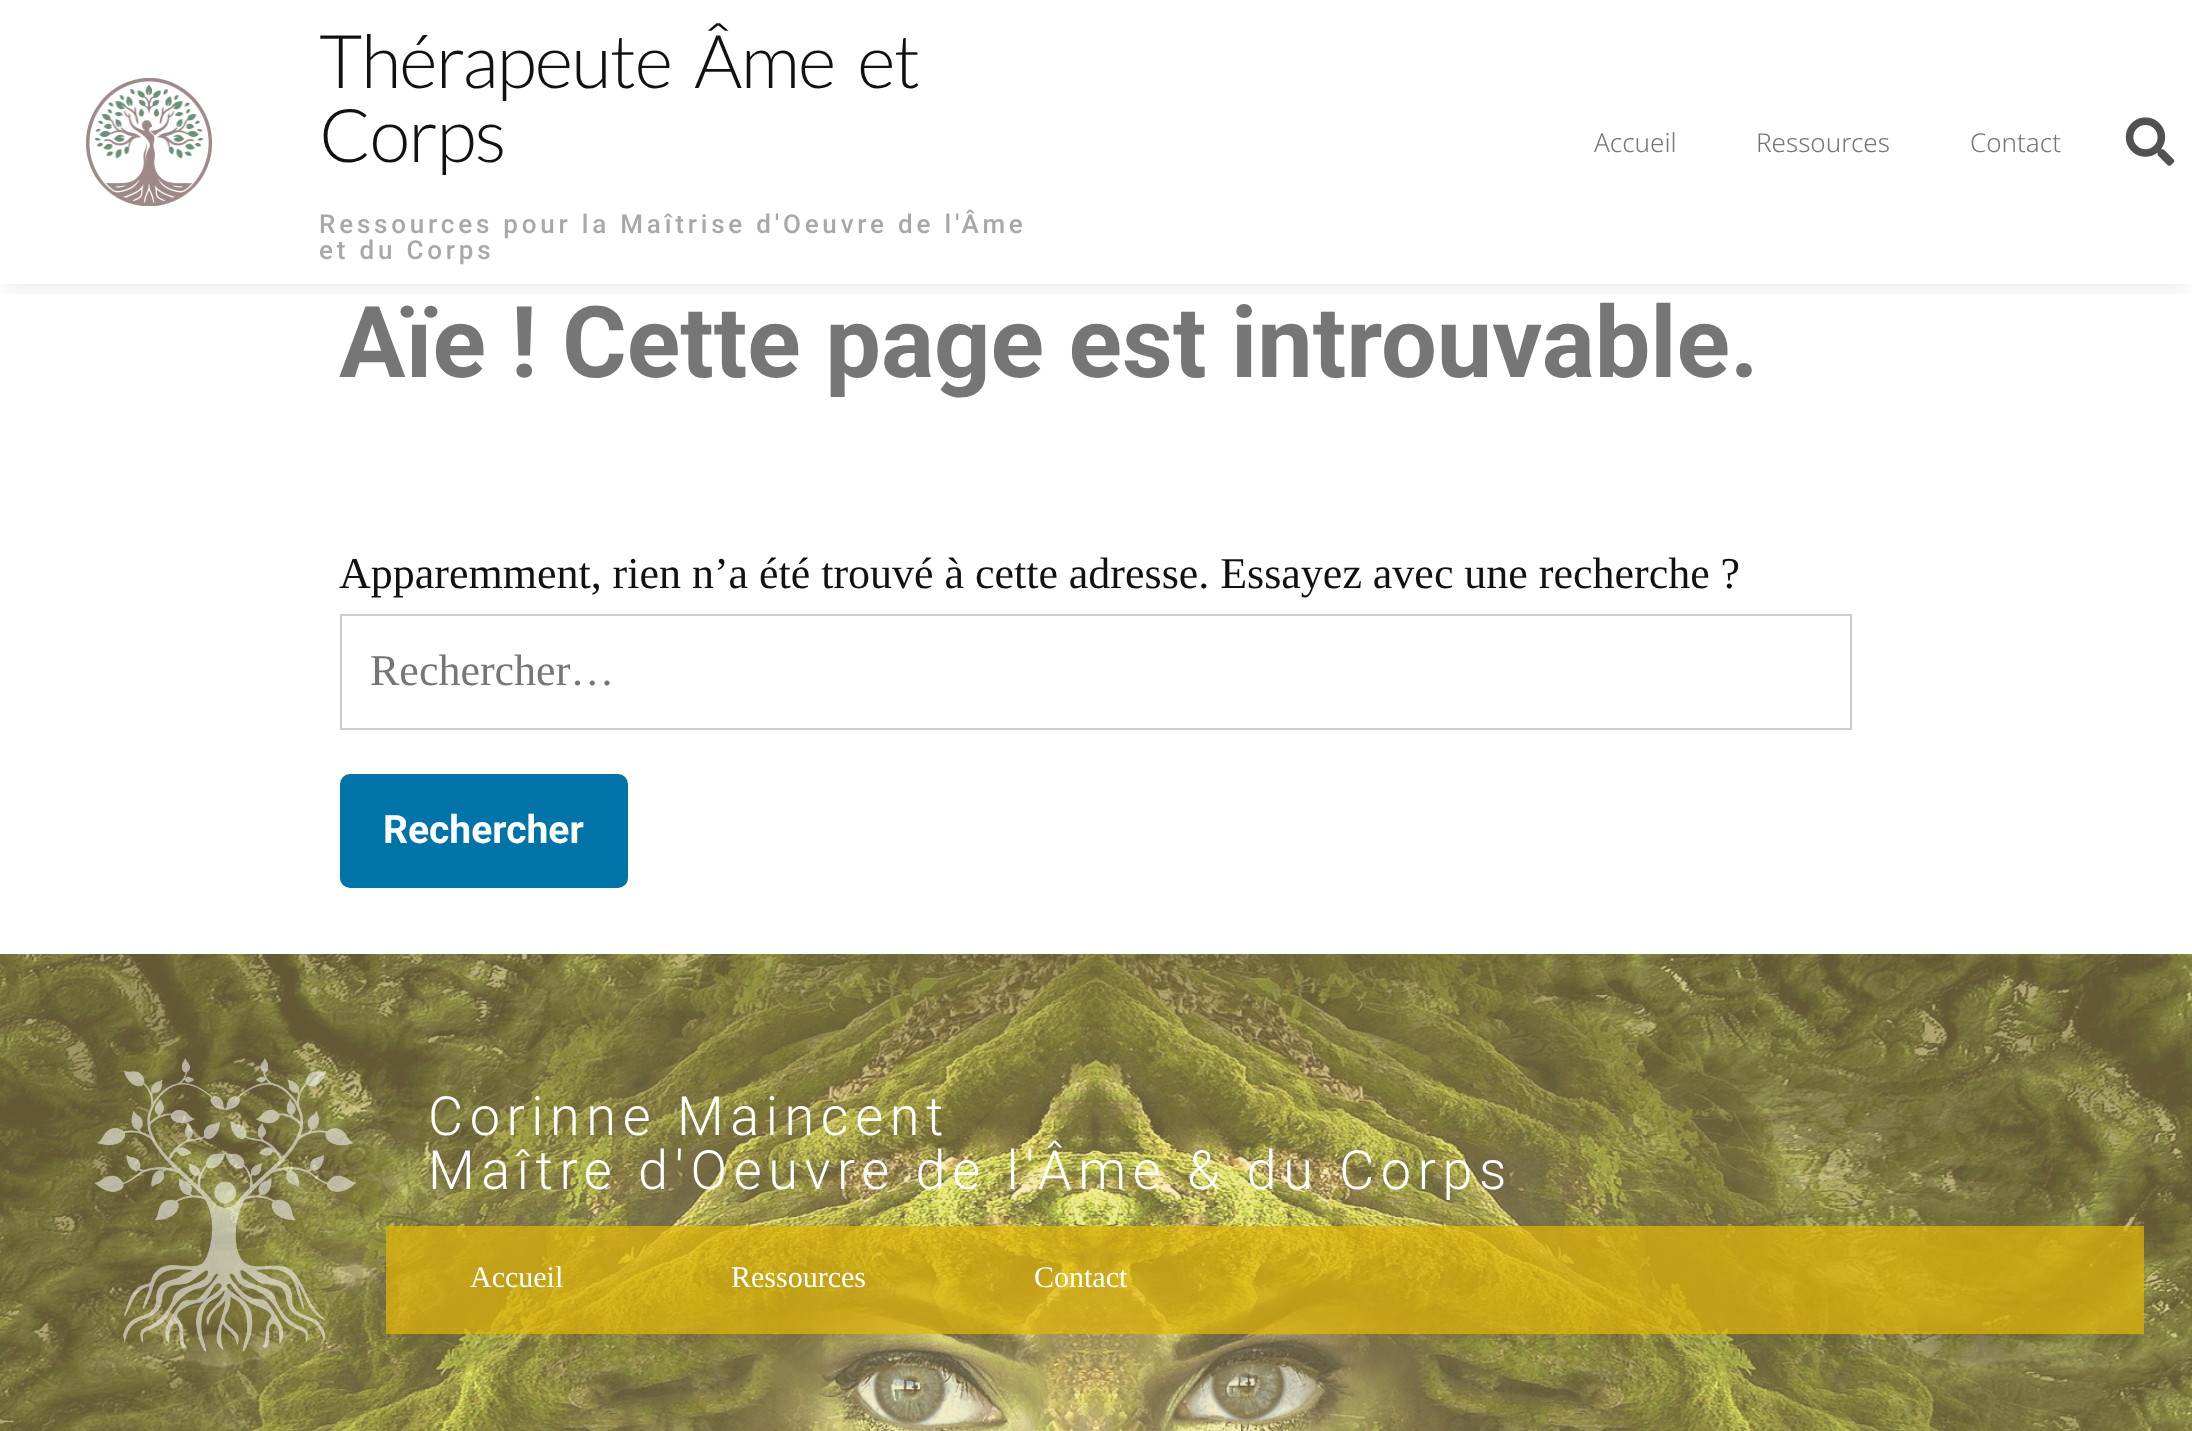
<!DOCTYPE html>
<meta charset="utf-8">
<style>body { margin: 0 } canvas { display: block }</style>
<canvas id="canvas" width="2192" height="1431"></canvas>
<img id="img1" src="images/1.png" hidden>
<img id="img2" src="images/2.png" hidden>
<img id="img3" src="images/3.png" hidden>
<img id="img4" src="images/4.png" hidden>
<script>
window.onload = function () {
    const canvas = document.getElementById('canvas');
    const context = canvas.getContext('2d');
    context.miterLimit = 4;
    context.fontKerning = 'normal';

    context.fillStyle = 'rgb(255, 255, 255)';
    context.fillRect(0, 0, 2192, 1431);
    context.save();
    context.beginPath();
    context.rect(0, 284, 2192, 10);
    context.clip();
    context.fillStyle = 'rgba(0, 0, 0, 0.1)';
    context.filter = 'blur(12px)';
    context.beginPath();
    context.rect(0, 0, 2192, 284);
    context.fill();
    context.filter = 'none';
    context.restore();
    context.drawImage(document.getElementById('img1'), 86, 78, 126, 128);
    context.drawImage(document.getElementById('img2'), 2125, 117, 50, 49);
    context.strokeStyle = 'rgb(204, 204, 204)';
    context.lineWidth = 2;
    context.strokeRect(341, 615, 1510, 114);
    context.fillStyle = 'rgb(0, 115, 168)';
    context.beginPath();
    context.roundRect(340, 774, 288, 114, 10);
    context.fill();
    context.drawImage(document.getElementById('img3'), 0, 954, 2192, 477);
    context.drawImage(document.getElementById('img4'), 94, 1058, 262, 294);
    context.fillStyle = 'rgba(224, 181, 8, 0.72)';
    context.fillRect(386, 1226, 1758, 108);
    context.letterSpacing = '-1.5px';
    context.wordSpacing = '10px';
    context.font = '300 74.25px Lato';
    context.fillStyle = 'rgb(17, 17, 17)';
    context.fillText('Thérapeute Âme et', 319, 88);
    context.wordSpacing = '0px';
    context.fillText('Corps', 319, 162);
    context.letterSpacing = '3.8px';
    context.font = '500 26px Roboto';
    context.fillStyle = 'rgb(168, 168, 168)';
    context.fillText('Ressources pour la Maîtrise d\'Oeuvre de l\'Âme', 319, 233);
    context.fillText('et du Corps', 319, 259);
    context.letterSpacing = '0px';
    context.font = '300 26px Noto Sans';
    context.fillStyle = 'rgb(118, 118, 118)';
    context.fillText('Accueil', 1594, 152);
    context.fillText('Ressources', 1756, 152);
    context.fillText('Contact', 1970, 152);
    context.font = 'bold 99px Roboto';
    context.fillText('Aïe ! Cette page est introuvable.', 339, 377);
    context.wordSpacing = '-0.1px';
    context.font = '44px Liberation Serif';
    context.fillStyle = 'rgb(17, 17, 17)';
    context.fillText('Apparemment, rien n’a été trouvé à cette adresse. Essayez avec une recherche ?', 339, 588);
    context.wordSpacing = '0px';
    context.fillStyle = 'rgb(118, 118, 118)';
    context.fillText('Rechercher…', 370, 685);
    context.font = 'bold 39px Roboto';
    context.fillStyle = 'rgb(255, 255, 255)';
    context.fillText('Rechercher', 383, 843);
    context.letterSpacing = '6.6px';
    context.font = '300 54px Roboto';
    context.fillText('Corinne Maincent', 428, 1135);
    context.fillText('Maître d\'Oeuvre de l\'Âme & du Corps', 428, 1189);
    context.letterSpacing = '0px';
    context.font = '30px Liberation Serif';
    context.fillText('Accueil', 470, 1287);
    context.fillText('Ressources', 731, 1287);
    context.fillText('Contact', 1034, 1287);
};
</script>
